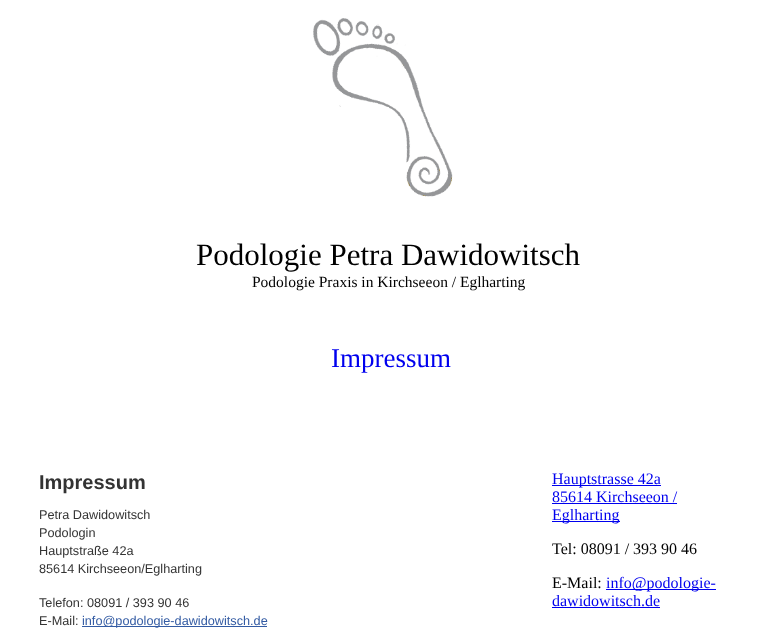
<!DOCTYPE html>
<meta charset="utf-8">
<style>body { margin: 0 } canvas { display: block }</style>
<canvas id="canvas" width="777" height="638"></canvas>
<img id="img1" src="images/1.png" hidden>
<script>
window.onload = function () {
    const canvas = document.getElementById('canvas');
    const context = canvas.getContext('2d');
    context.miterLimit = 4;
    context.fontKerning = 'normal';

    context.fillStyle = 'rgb(255, 255, 255)';
    context.fillRect(0, 0, 777, 638);
    context.drawImage(document.getElementById('img1'), 313, 18, 140, 179);
    context.fillStyle = 'rgb(51, 91, 163)';
    context.fillRect(82, 626, 185, 1);
    context.fillStyle = 'rgb(0, 0, 238)';
    context.fillRect(552, 485, 109, 1);
    context.fillRect(552, 503, 125, 1);
    context.fillRect(552, 521, 68, 1);
    context.fillRect(606, 589, 110, 1);
    context.fillRect(552, 607, 108, 1);
    context.font = '31px Liberation Serif';
    context.fillStyle = 'rgb(0, 0, 0)';
    context.fillText('Podologie Petra Dawidowitsch', 196, 265);
    context.font = '15.5px Liberation Serif';
    context.fillText('Podologie Praxis in Kirchseeon / Eglharting', 252, 287);
    context.font = '27px Liberation Serif';
    context.fillStyle = 'rgb(0, 0, 238)';
    context.fillText('Impressum', 331, 367);
    context.font = 'bold 20px Liberation Sans';
    context.fillStyle = 'rgb(51, 51, 51)';
    context.fillText('Impressum', 39, 489);
    context.font = '12.7px Liberation Sans';
    context.fillText('Petra Dawidowitsch', 39, 519);
    context.fillText('Podologin', 39, 537);
    context.fillText('Hauptstraße 42a', 39, 555);
    context.fillText('85614 Kirchseeon/Eglharting', 39, 573);
    context.fillText('Telefon: 08091 / 393 90 46', 39, 607);
    context.fillText('E-Mail:', 39, 625);
    context.fillStyle = 'rgb(51, 91, 163)';
    context.fillText('info@podologie-dawidowitsch.de', 82, 625);
    context.font = '16px Liberation Serif';
    context.fillStyle = 'rgb(0, 0, 238)';
    context.fillText('Hauptstrasse 42a', 552, 484);
    context.fillText('85614 Kirchseeon /', 552, 502);
    context.fillText('Eglharting', 552, 520);
    context.fillStyle = 'rgb(0, 0, 0)';
    context.fillText('Tel: 08091 / 393 90 46', 552, 554);
    context.fillText('E-Mail:', 552, 588);
    context.fillStyle = 'rgb(0, 0, 238)';
    context.fillText('info@podologie-', 606, 588);
    context.fillText('dawidowitsch.de', 552, 606);
};
</script>
